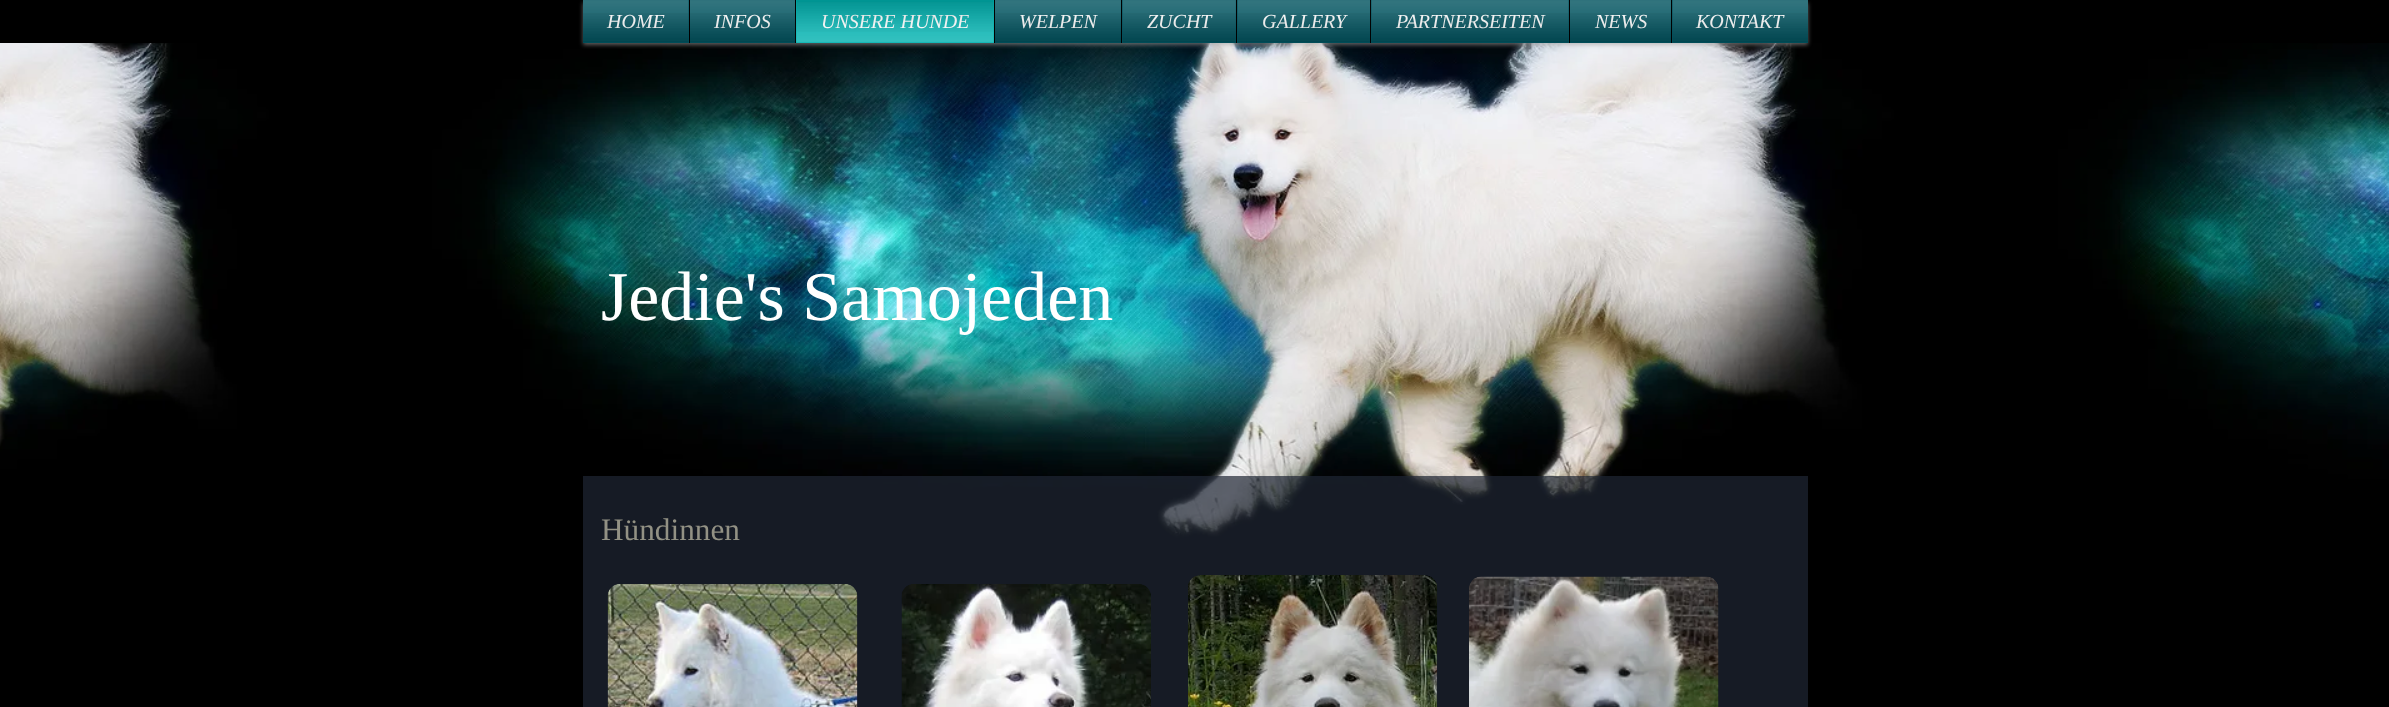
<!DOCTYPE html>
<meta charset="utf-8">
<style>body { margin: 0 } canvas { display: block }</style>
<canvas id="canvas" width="2389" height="707"></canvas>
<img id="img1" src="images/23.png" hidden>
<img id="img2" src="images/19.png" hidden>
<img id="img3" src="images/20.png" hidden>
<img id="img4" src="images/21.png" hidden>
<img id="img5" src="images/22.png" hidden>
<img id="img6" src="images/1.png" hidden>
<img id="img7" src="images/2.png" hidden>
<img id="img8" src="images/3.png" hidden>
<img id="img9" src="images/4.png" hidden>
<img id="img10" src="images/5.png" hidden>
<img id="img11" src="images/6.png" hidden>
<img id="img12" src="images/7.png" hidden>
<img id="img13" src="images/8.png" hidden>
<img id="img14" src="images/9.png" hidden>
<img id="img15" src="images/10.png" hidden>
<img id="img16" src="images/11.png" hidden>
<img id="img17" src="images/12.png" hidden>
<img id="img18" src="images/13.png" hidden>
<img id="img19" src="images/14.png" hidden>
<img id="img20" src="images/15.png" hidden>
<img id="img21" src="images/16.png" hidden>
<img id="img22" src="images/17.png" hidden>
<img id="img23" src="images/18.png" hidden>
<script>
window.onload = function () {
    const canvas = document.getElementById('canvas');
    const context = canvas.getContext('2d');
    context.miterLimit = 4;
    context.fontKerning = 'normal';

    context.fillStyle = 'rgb(0, 0, 0)';
    context.fillRect(0, 0, 2389, 707);
    context.drawImage(document.getElementById('img1'), 0, 43, 2389, 495);
    context.fillStyle = 'rgba(162, 158, 158, 0.6)';
    context.filter = 'blur(2px)';
    context.beginPath();
    context.rect(583, 3, 1225, 42);
    context.fill();
    context.filter = 'none';
    context.fillStyle = 'rgb(0, 83, 95)';
    context.fillRect(583, 0, 106, 43);
    context.fillRect(690, 0, 105, 43);
    context.fillStyle = 'rgb(0, 0, 0)';
    context.fillRect(689, 0, 1, 43);
    context.fillStyle = 'rgb(1, 177, 175)';
    context.fillRect(796, 0, 198, 43);
    context.fillStyle = 'rgb(0, 0, 0)';
    context.fillRect(795, 0, 1, 43);
    context.fillStyle = 'rgb(0, 83, 95)';
    context.fillRect(995, 0, 126, 43);
    context.fillStyle = 'rgb(0, 0, 0)';
    context.fillRect(994, 0, 1, 43);
    context.fillStyle = 'rgb(0, 83, 95)';
    context.fillRect(1122, 0, 114, 43);
    context.fillStyle = 'rgb(0, 0, 0)';
    context.fillRect(1121, 0, 1, 43);
    context.fillStyle = 'rgb(0, 83, 95)';
    context.fillRect(1237, 0, 133, 43);
    context.fillStyle = 'rgb(0, 0, 0)';
    context.fillRect(1236, 0, 1, 43);
    context.fillStyle = 'rgb(0, 83, 95)';
    context.fillRect(1371, 0, 198, 43);
    context.fillStyle = 'rgb(0, 0, 0)';
    context.fillRect(1370, 0, 1, 43);
    context.fillStyle = 'rgb(0, 83, 95)';
    context.fillRect(1570, 0, 101, 43);
    context.fillStyle = 'rgb(0, 0, 0)';
    context.fillRect(1569, 0, 1, 43);
    context.fillStyle = 'rgb(0, 83, 95)';
    context.fillRect(1672, 0, 136, 43);
    context.fillStyle = 'rgb(0, 0, 0)';
    context.fillRect(1671, 0, 1, 43);
    context.fillStyle = 'rgba(31, 38, 52, 0.7)';
    context.fillRect(583, 476, 1225, 231);
    context.drawImage(document.getElementById('img2'), 607, 584, 251, 123);
    context.drawImage(document.getElementById('img3'), 901, 584, 250, 123);
    context.drawImage(document.getElementById('img4'), 1188, 575, 250, 132);
    context.drawImage(document.getElementById('img5'), 1469, 576, 250, 131);
    context.font = 'italic 20px Liberation Serif';
    context.fillStyle = 'rgb(255, 255, 255)';
    context.fillText('HOME', 607, 28);
    context.drawImage(document.getElementById('img6'), 583, 0, 106, 41);
    context.drawImage(document.getElementById('img7'), 583, 13, 106, 30);
    context.fillText('INFOS', 714, 28);
    context.drawImage(document.getElementById('img8'), 690, 0, 105, 41);
    context.drawImage(document.getElementById('img9'), 690, 13, 105, 30);
    context.fillText('UNSERE HUNDE', 821, 28);
    context.drawImage(document.getElementById('img10'), 796, 0, 198, 32);
    context.drawImage(document.getElementById('img11'), 795, 2, 199, 41);
    context.fillText('WELPEN', 1019, 28);
    context.drawImage(document.getElementById('img12'), 995, 0, 126, 41);
    context.drawImage(document.getElementById('img13'), 995, 13, 126, 30);
    context.fillText('ZUCHT', 1147, 28);
    context.drawImage(document.getElementById('img14'), 1122, 0, 114, 41);
    context.drawImage(document.getElementById('img15'), 1122, 13, 114, 30);
    context.fillText('GALLERY', 1262, 28);
    context.drawImage(document.getElementById('img16'), 1237, 0, 133, 41);
    context.drawImage(document.getElementById('img17'), 1237, 13, 133, 30);
    context.fillText('PARTNERSEITEN', 1396, 28);
    context.drawImage(document.getElementById('img18'), 1370, 0, 199, 41);
    context.drawImage(document.getElementById('img19'), 1371, 13, 198, 30);
    context.fillText('NEWS', 1595, 28);
    context.drawImage(document.getElementById('img20'), 1570, 0, 101, 41);
    context.drawImage(document.getElementById('img21'), 1570, 13, 101, 30);
    context.fillText('KONTAKT', 1696, 28);
    context.drawImage(document.getElementById('img22'), 1672, 0, 136, 41);
    context.drawImage(document.getElementById('img23'), 1672, 13, 136, 30);
    context.font = '70px Liberation Serif';
    context.fillText('Jedie\'s Samojeden', 601, 320);
    context.font = '31.25px Liberation Serif';
    context.fillStyle = 'rgb(146, 145, 132)';
    context.fillText('Hündinnen', 601, 540);
};
</script>
